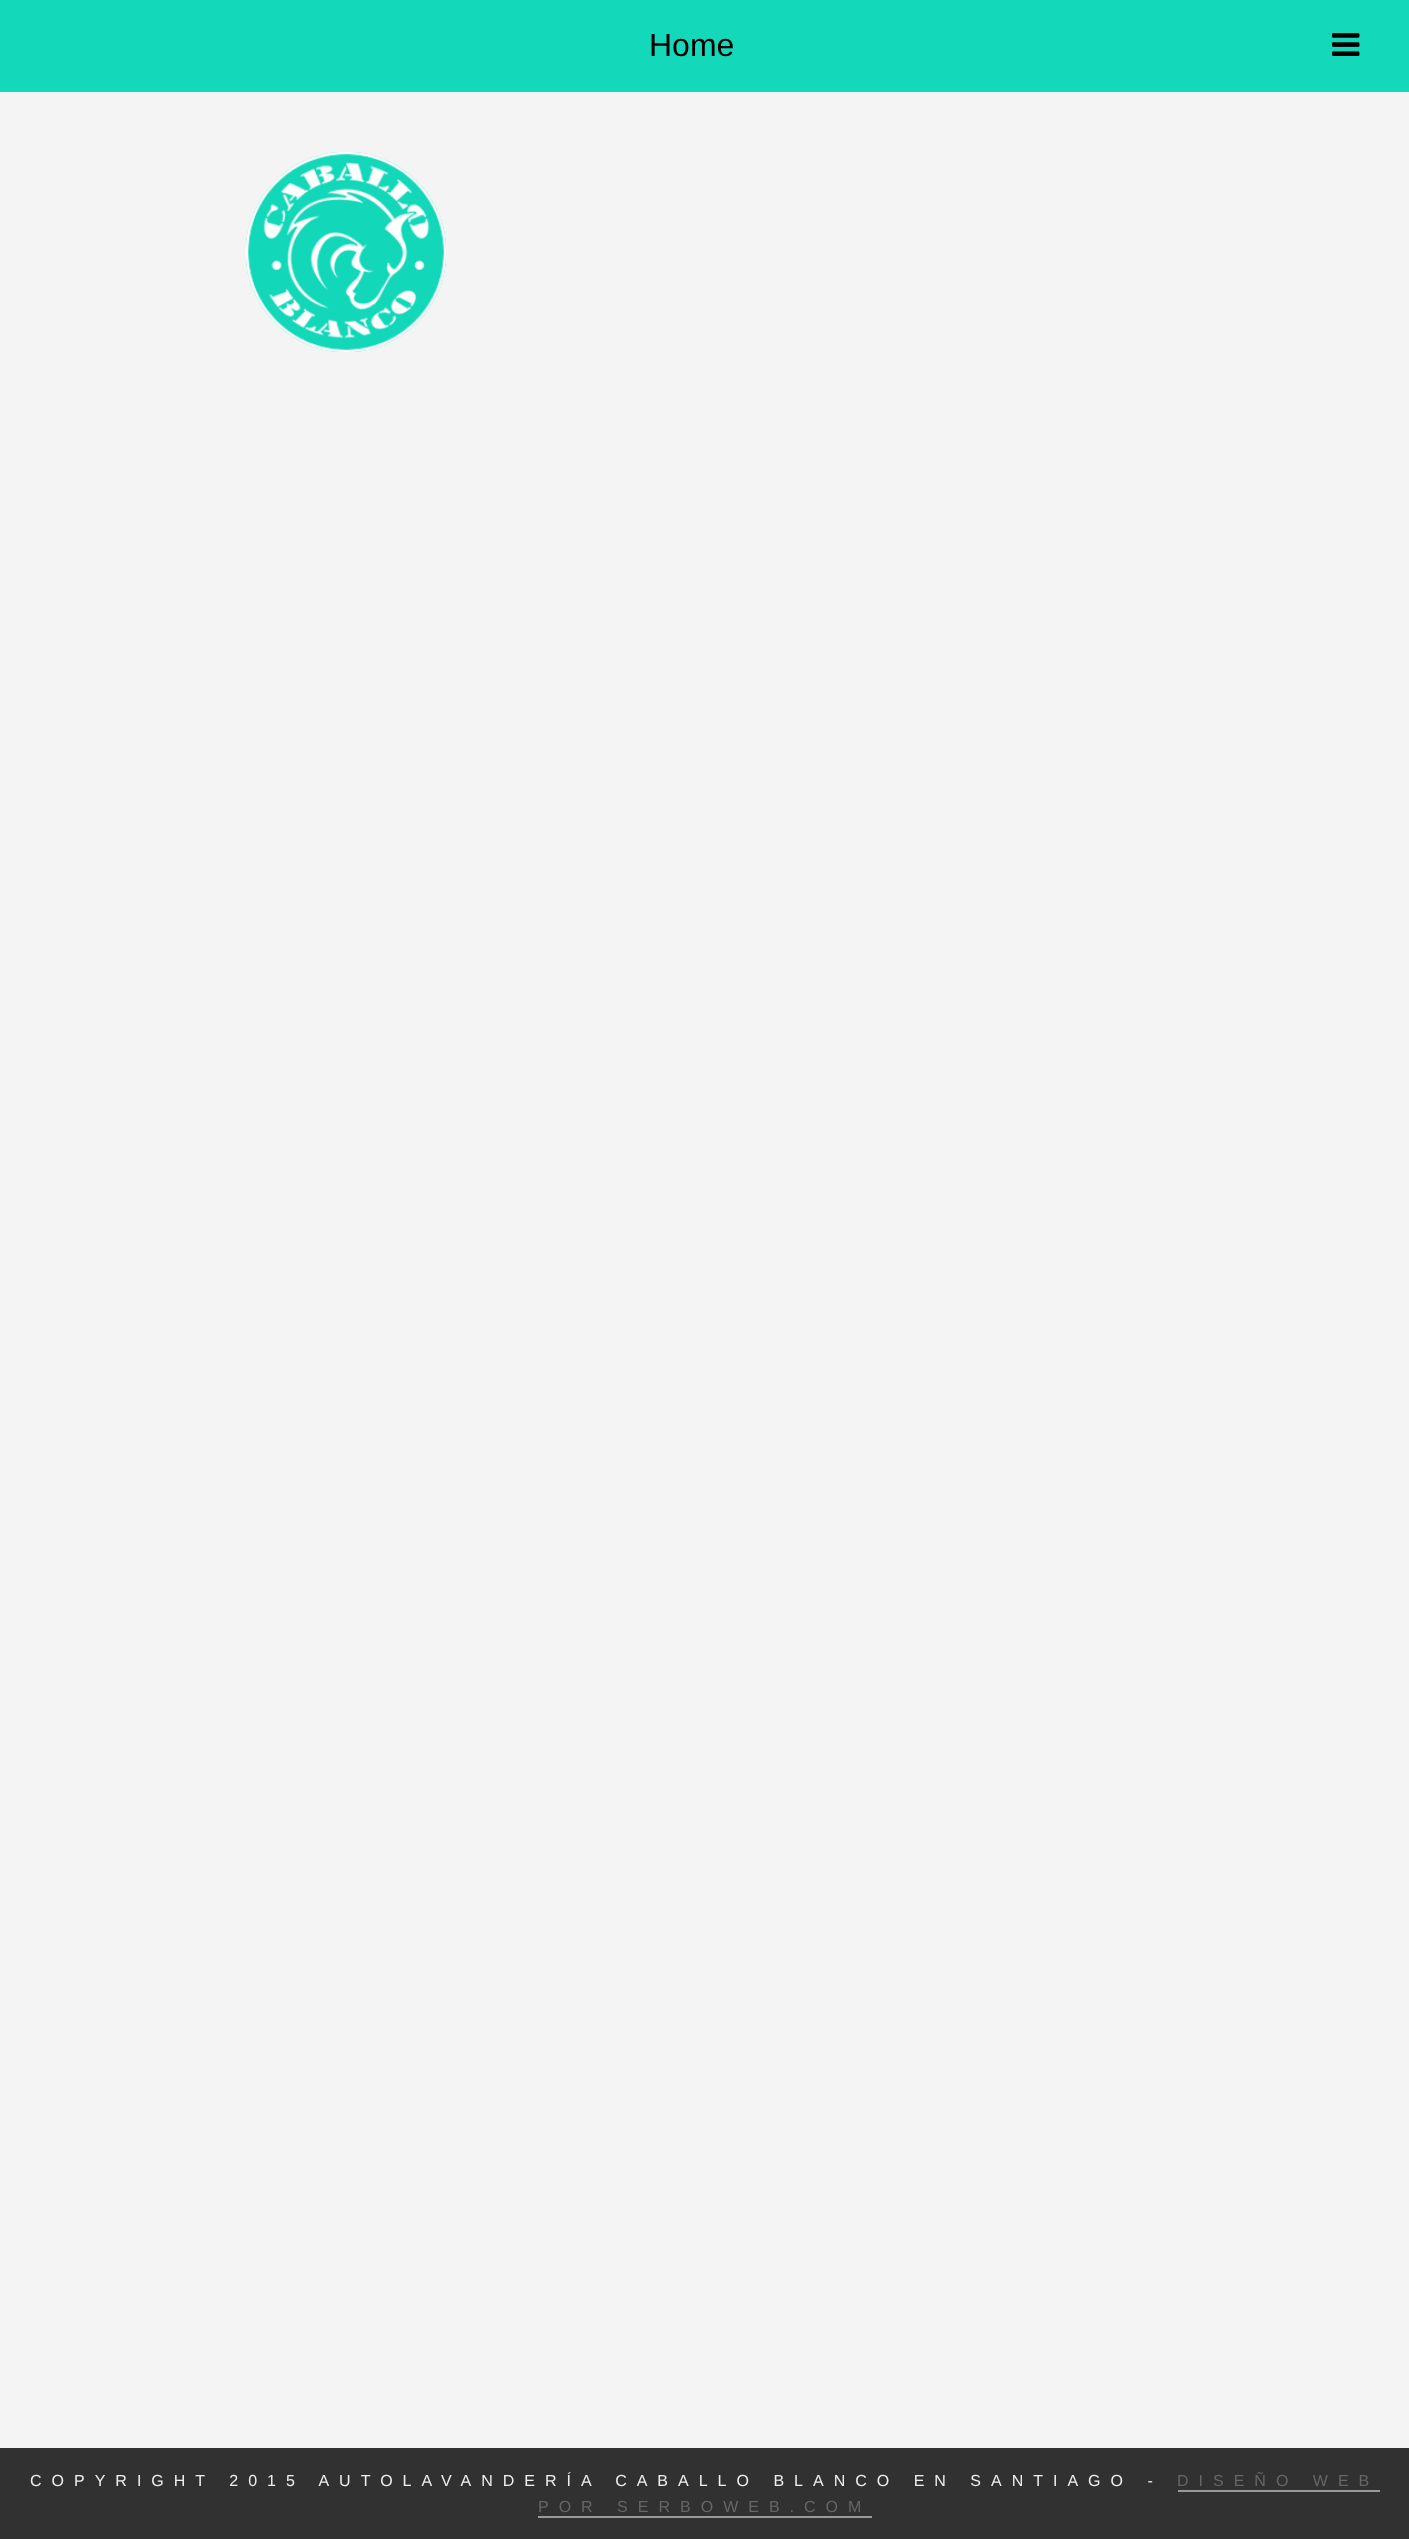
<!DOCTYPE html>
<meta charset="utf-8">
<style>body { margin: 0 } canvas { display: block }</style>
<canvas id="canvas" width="1409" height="2539"></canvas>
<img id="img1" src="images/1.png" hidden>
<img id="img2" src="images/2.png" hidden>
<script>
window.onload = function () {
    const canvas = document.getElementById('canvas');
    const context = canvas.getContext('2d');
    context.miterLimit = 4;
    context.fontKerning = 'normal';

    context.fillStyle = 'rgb(244, 244, 244)';
    context.fillRect(0, 0, 1409, 2539);
    context.fillStyle = 'rgb(19, 217, 186)';
    context.fillRect(0, 0, 1409, 92);
    context.drawImage(document.getElementById('img1'), 1332, 33, 28, 23);
    context.drawImage(document.getElementById('img2'), 246, 152, 200, 200);
    context.fillStyle = 'rgb(49, 49, 49)';
    context.fillRect(0, 2448, 1409, 91);
    context.fillStyle = 'rgb(153, 153, 153)';
    context.fillRect(1178, 2490, 202, 2);
    context.fillRect(538, 2516, 334, 2);
    context.font = '32px Liberation Sans';
    context.fillStyle = 'rgb(0, 0, 0)';
    context.fillText('Home', 649, 56);
    context.letterSpacing = '10px';
    context.font = '16px Liberation Sans';
    context.fillStyle = 'rgb(238, 238, 238)';
    context.fillText('COPYRIGHT 2015 AUTOLAVANDERÍA CABALLO BLANCO EN SANTIAGO -', 30, 2486);
    context.fillStyle = 'rgb(102, 102, 102)';
    context.fillText('DISEÑO WEB', 1177, 2486);
    context.fillText('POR SERBOWEB.COM', 538, 2512);
};
</script>
